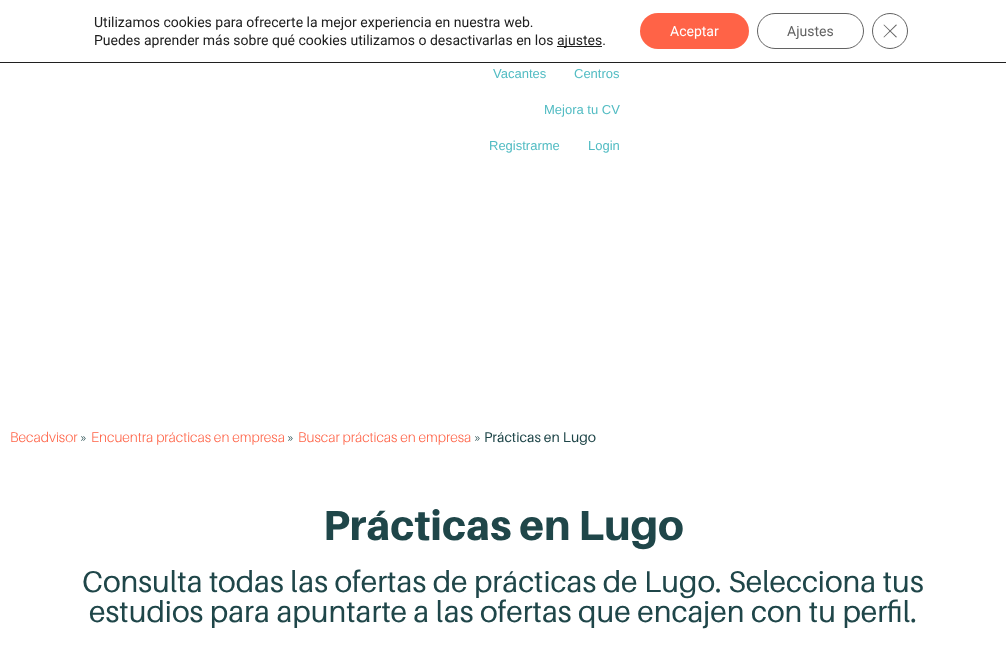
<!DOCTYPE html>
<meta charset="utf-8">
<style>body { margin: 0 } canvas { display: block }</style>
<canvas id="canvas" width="1006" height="664"></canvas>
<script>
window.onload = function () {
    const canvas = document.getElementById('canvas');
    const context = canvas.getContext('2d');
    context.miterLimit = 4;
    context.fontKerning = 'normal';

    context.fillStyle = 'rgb(255, 255, 255)';
    context.fillRect(0, 0, 1006, 664);
    context.fillStyle = 'rgb(32, 32, 32)';
    context.fillRect(0, 62, 1006, 1);
    context.fillRect(557, 46, 45, 1);
    context.fillStyle = 'rgb(255, 99, 71)';
    context.beginPath();
    context.roundRect(640, 13, 109, 36, 18);
    context.fill();
    context.beginPath();
    context.roundRect(757.5, 13.5, 106, 35, 17.5);
    context.strokeStyle = 'rgb(99, 99, 99)';
    context.stroke();
    context.beginPath();
    context.arc(890, 31, 17.5, 0, 2 * Math.PI);
    context.strokeStyle = 'rgb(98, 98, 98)';
    context.stroke();
    context.fillStyle = 'rgb(98, 98, 98)';
    context.beginPath();
    context.moveTo(896, 24.5);
    context.lineTo(897, 25);
    context.lineTo(884, 37.5);
    context.lineTo(883.5, 37);
    context.closePath();
    context.fill();
    context.beginPath();
    context.moveTo(883.5, 25);
    context.lineTo(884, 24.5);
    context.lineTo(897, 37);
    context.lineTo(896, 37.5);
    context.closePath();
    context.fill();
    context.font = '14px Roboto';
    context.fillStyle = 'rgb(32, 32, 32)';
    context.fillText('Utilizamos cookies para ofrecerte la mejor experiencia en nuestra web.', 94, 27);
    context.fillText('Puedes aprender más sobre qué cookies utilizamos o desactivarlas en los', 94, 45);
    context.fillText('ajustes.', 557, 45);
    context.fillStyle = 'rgb(255, 255, 255)';
    context.fillText('Aceptar', 670, 36);
    context.fillStyle = 'rgb(99, 99, 99)';
    context.fillText('Ajustes', 787, 36);
    context.font = '13px Liberation Sans';
    context.fillStyle = 'rgb(82, 188, 195)';
    context.fillText('Vacantes', 493, 78);
    context.fillText('Centros', 574, 78);
    context.fillText('Mejora tu CV', 544, 114);
    context.fillText('Registrarme', 489, 150);
    context.fillText('Login', 588, 150);
    context.font = '300 14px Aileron';
    context.fillStyle = 'rgb(255, 99, 71)';
    context.fillText('Becadvisor', 10, 442);
    context.fillStyle = 'rgb(31, 70, 73)';
    context.fillText('»', 80, 442);
    context.fillStyle = 'rgb(255, 99, 71)';
    context.fillText('Encuentra prácticas en empresa', 91, 442);
    context.fillStyle = 'rgb(31, 70, 73)';
    context.fillText('»', 287, 442);
    context.fillStyle = 'rgb(255, 99, 71)';
    context.fillText('Buscar prácticas en empresa', 298, 442);
    context.fillStyle = 'rgb(31, 70, 73)';
    context.fillText('»', 474, 442);
    context.font = '14px Aileron';
    context.fillText('Prácticas en Lugo', 484, 442);
    context.font = '900 42px Aileron';
    context.fillText('Prácticas en Lugo', 323, 540);
    context.font = '30px Aileron';
    context.fillText('Consulta todas las ofertas de prácticas de Lugo. Selecciona tus', 82, 592);
    context.fillText('estudios para apuntarte a las ofertas que encajen con tu perfil.', 89, 622);
};
</script>
